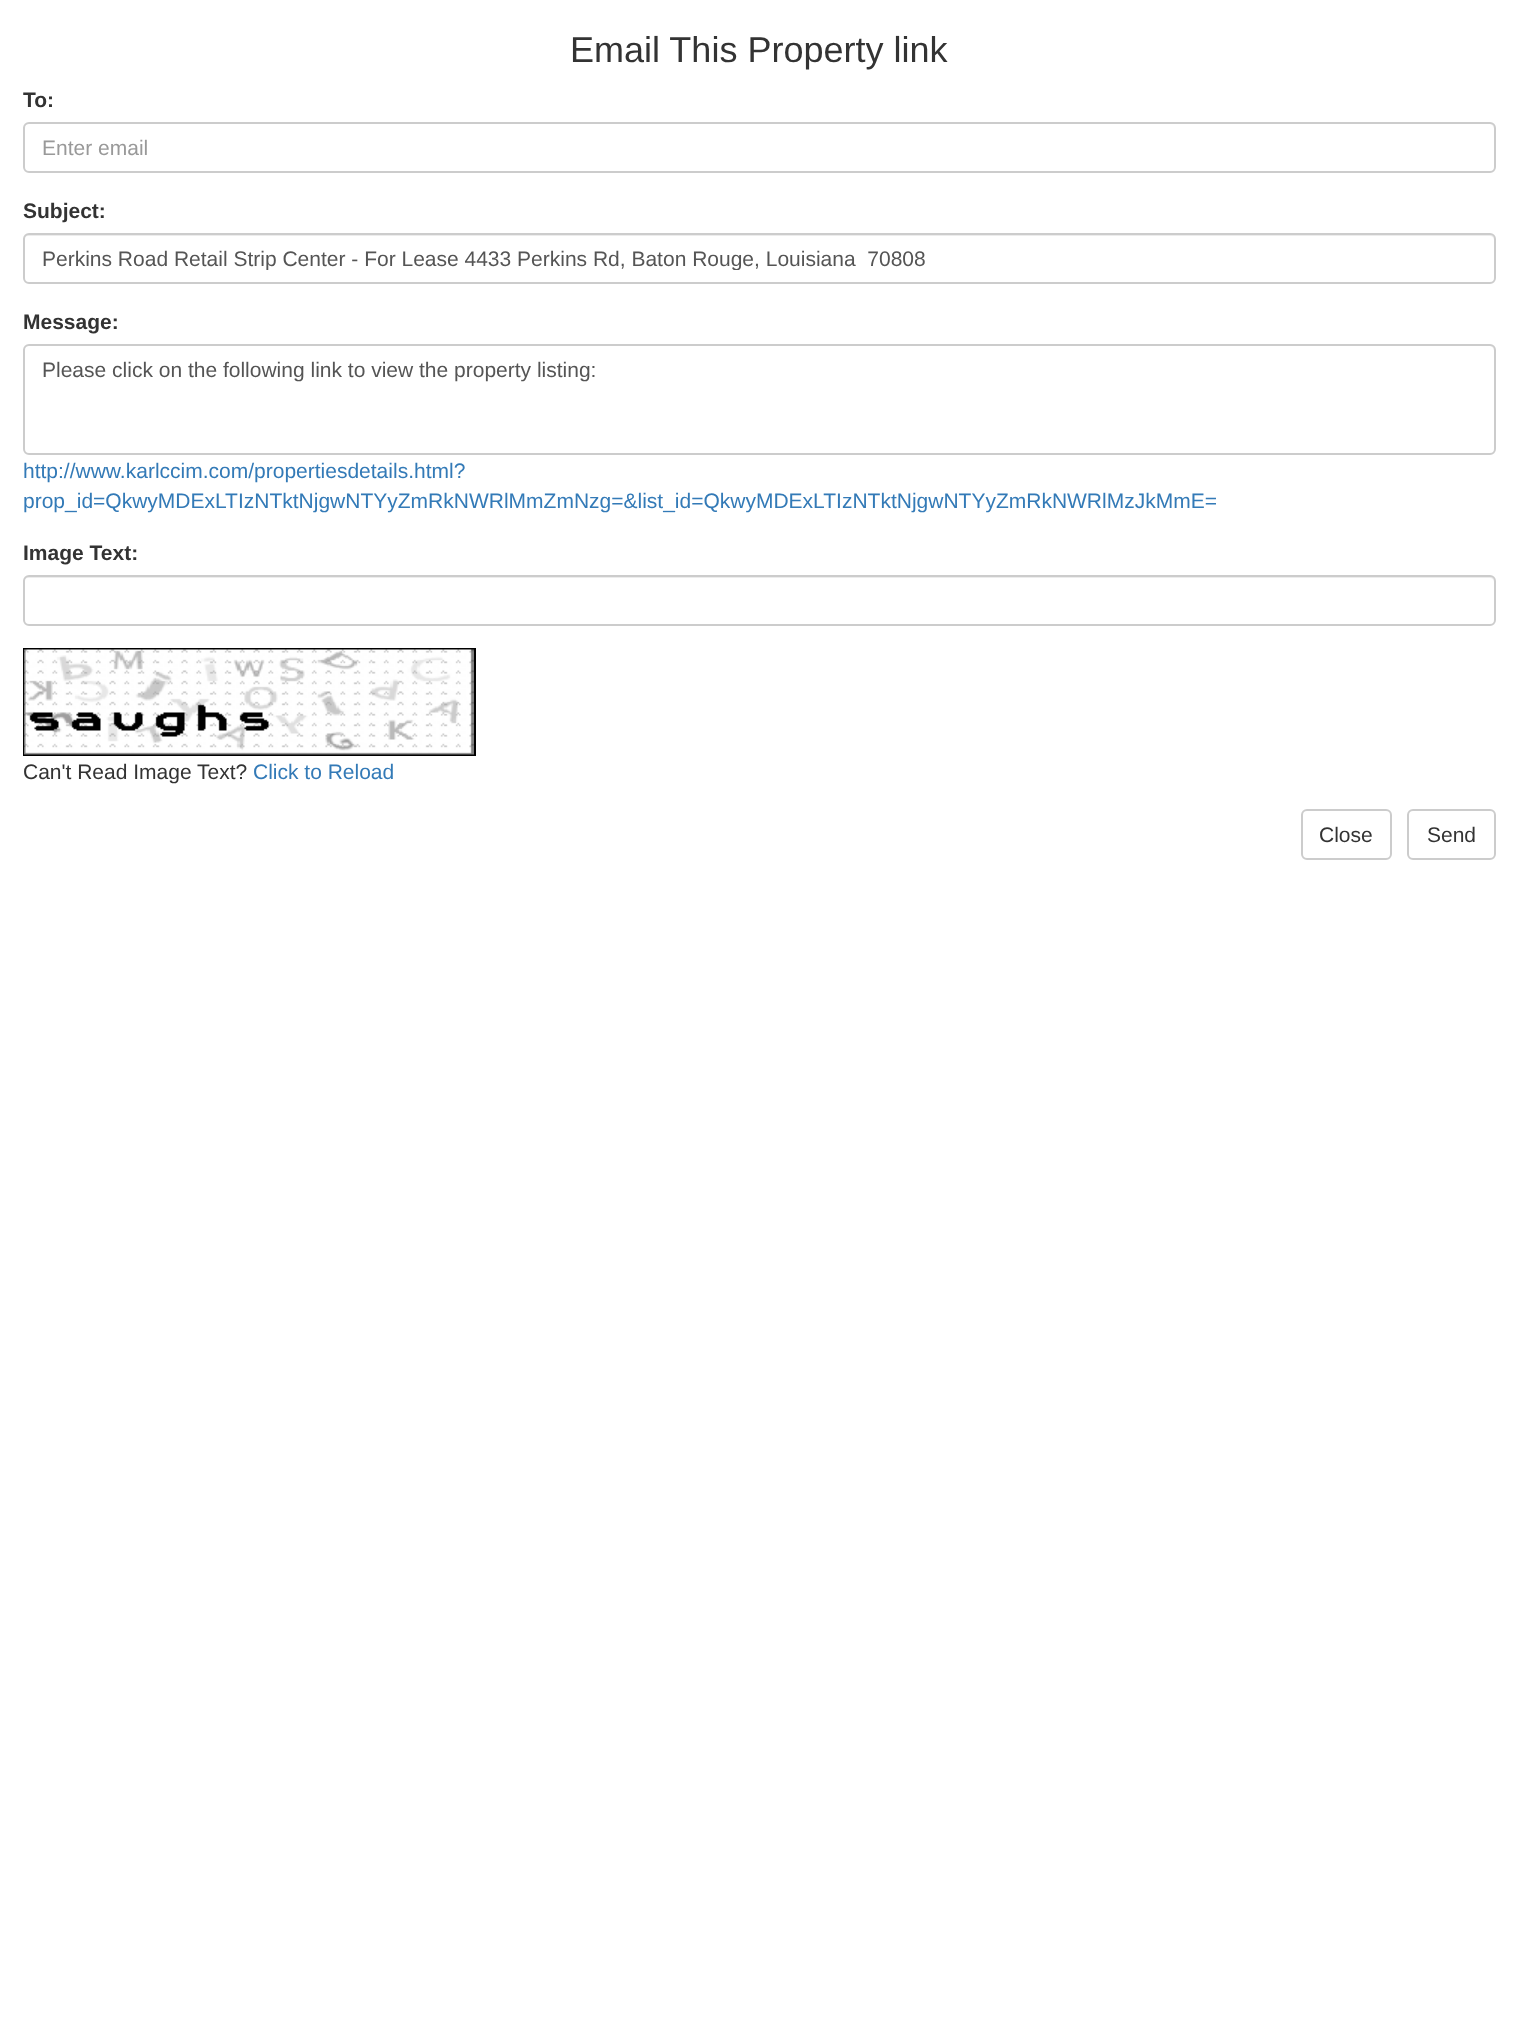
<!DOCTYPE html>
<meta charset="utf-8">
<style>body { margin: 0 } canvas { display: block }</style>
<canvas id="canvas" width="1518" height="2044"></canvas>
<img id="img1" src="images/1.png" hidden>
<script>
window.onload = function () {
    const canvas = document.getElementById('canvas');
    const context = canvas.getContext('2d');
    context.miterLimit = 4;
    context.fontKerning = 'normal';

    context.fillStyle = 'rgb(255, 255, 255)';
    context.fillRect(0, 0, 1518, 2044);
    context.fillStyle = 'rgb(236, 236, 236)';
    context.beginPath();
    context.moveTo(28, 124);
    context.lineTo(1490, 124);
    context.bezierCurveTo(1492, 124, 1494, 127, 1494, 129);
    context.lineTo(1494, 128);
    context.bezierCurveTo(1494, 125, 1492, 123, 1489, 123);
    context.lineTo(29, 123);
    context.bezierCurveTo(26, 123, 24, 125, 24, 128);
    context.lineTo(24, 129);
    context.bezierCurveTo(24, 127, 26, 124, 28, 124);
    context.closePath();
    context.fill();
    context.beginPath();
    context.roundRect(24, 123, 1471, 49, 5);
    context.strokeStyle = 'rgb(204, 204, 204)';
    context.lineWidth = 2;
    context.stroke();
    context.beginPath();
    context.moveTo(28, 236);
    context.lineTo(1490, 236);
    context.bezierCurveTo(1492, 236, 1494, 238, 1494, 240);
    context.lineTo(1494, 239);
    context.bezierCurveTo(1494, 236, 1492, 234, 1489, 234);
    context.lineTo(29, 234);
    context.bezierCurveTo(26, 234, 24, 236, 24, 239);
    context.lineTo(24, 240);
    context.bezierCurveTo(24, 238, 26, 236, 28, 236);
    context.closePath();
    context.fill();
    context.beginPath();
    context.roundRect(24, 234, 1471, 49, 5);
    context.stroke();
    context.beginPath();
    context.moveTo(28, 346);
    context.lineTo(1490, 346);
    context.bezierCurveTo(1492, 346, 1494, 349, 1494, 351);
    context.lineTo(1494, 350);
    context.bezierCurveTo(1494, 347, 1492, 345, 1489, 345);
    context.lineTo(29, 345);
    context.bezierCurveTo(26, 345, 24, 347, 24, 350);
    context.lineTo(24, 351);
    context.bezierCurveTo(24, 349, 26, 346, 28, 346);
    context.closePath();
    context.fill();
    context.beginPath();
    context.roundRect(24, 345, 1471, 109, 5);
    context.stroke();
    context.beginPath();
    context.moveTo(28, 578);
    context.lineTo(1490, 578);
    context.bezierCurveTo(1492, 578, 1494, 580, 1494, 582);
    context.lineTo(1494, 581);
    context.bezierCurveTo(1494, 578, 1492, 576, 1489, 576);
    context.lineTo(29, 576);
    context.bezierCurveTo(26, 576, 24, 578, 24, 581);
    context.lineTo(24, 582);
    context.bezierCurveTo(24, 580, 26, 578, 28, 578);
    context.closePath();
    context.fill();
    context.beginPath();
    context.roundRect(24, 576, 1471, 49, 5);
    context.stroke();
    context.strokeStyle = 'rgb(0, 0, 0)';
    context.strokeRect(24, 649, 451, 106);
    context.drawImage(document.getElementById('img1'), 24, 649, 450, 106);
    context.beginPath();
    context.roundRect(1302, 810, 89, 49, 5);
    context.strokeStyle = 'rgb(204, 204, 204)';
    context.stroke();
    context.beginPath();
    context.roundRect(1408, 810, 87, 49, 5);
    context.stroke();
    context.font = '36px Liberation Sans';
    context.fillStyle = 'rgb(51, 51, 51)';
    context.fillText('Email This Property link', 570, 62);
    context.font = 'bold 21px Liberation Sans';
    context.fillText('To:', 23, 107);
    context.font = '21px Liberation Sans';
    context.fillStyle = 'rgb(153, 153, 153)';
    context.fillText('Enter email', 42, 155);
    context.font = 'bold 21px Liberation Sans';
    context.fillStyle = 'rgb(51, 51, 51)';
    context.fillText('Subject:', 23, 218);
    context.save();
    context.beginPath();
    context.rect(42, 246, 1434, 24);
    context.clip();
    context.font = '21px Liberation Sans';
    context.fillStyle = 'rgb(85, 85, 85)';
    context.fillText('Perkins Road Retail Strip Center - For Lease 4433 Perkins Rd, Baton Rouge, Louisiana  70808', 42, 266);
    context.restore();
    context.fillText('Message:', 23, 329);
    context.font = '21px Liberation Sans';
    context.fillStyle = 'rgb(85, 85, 85)';
    context.fillText('Please click on the following link to view the property listing:', 42, 377);
    context.fillStyle = 'rgb(51, 122, 183)';
    context.fillText('http://www.karlccim.com/propertiesdetails.html?', 23, 478);
    context.fillText('prop_id=QkwyMDExLTIzNTktNjgwNTYyZmRkNWRlMmZmNzg=&list_id=QkwyMDExLTIzNTktNjgwNTYyZmRkNWRlMzJkMmE=', 23, 508);
    context.font = 'bold 21px Liberation Sans';
    context.fillStyle = 'rgb(51, 51, 51)';
    context.fillText('Image Text:', 23, 560);
    context.font = '21px Liberation Sans';
    context.fillText('Can\'t Read Image Text?', 23, 779);
    context.fillStyle = 'rgb(51, 122, 183)';
    context.fillText('Click to Reload', 253, 779);
    context.fillStyle = 'rgb(51, 51, 51)';
    context.fillText('Close', 1319, 842);
    context.fillText('Send', 1427, 842);
};
</script>
